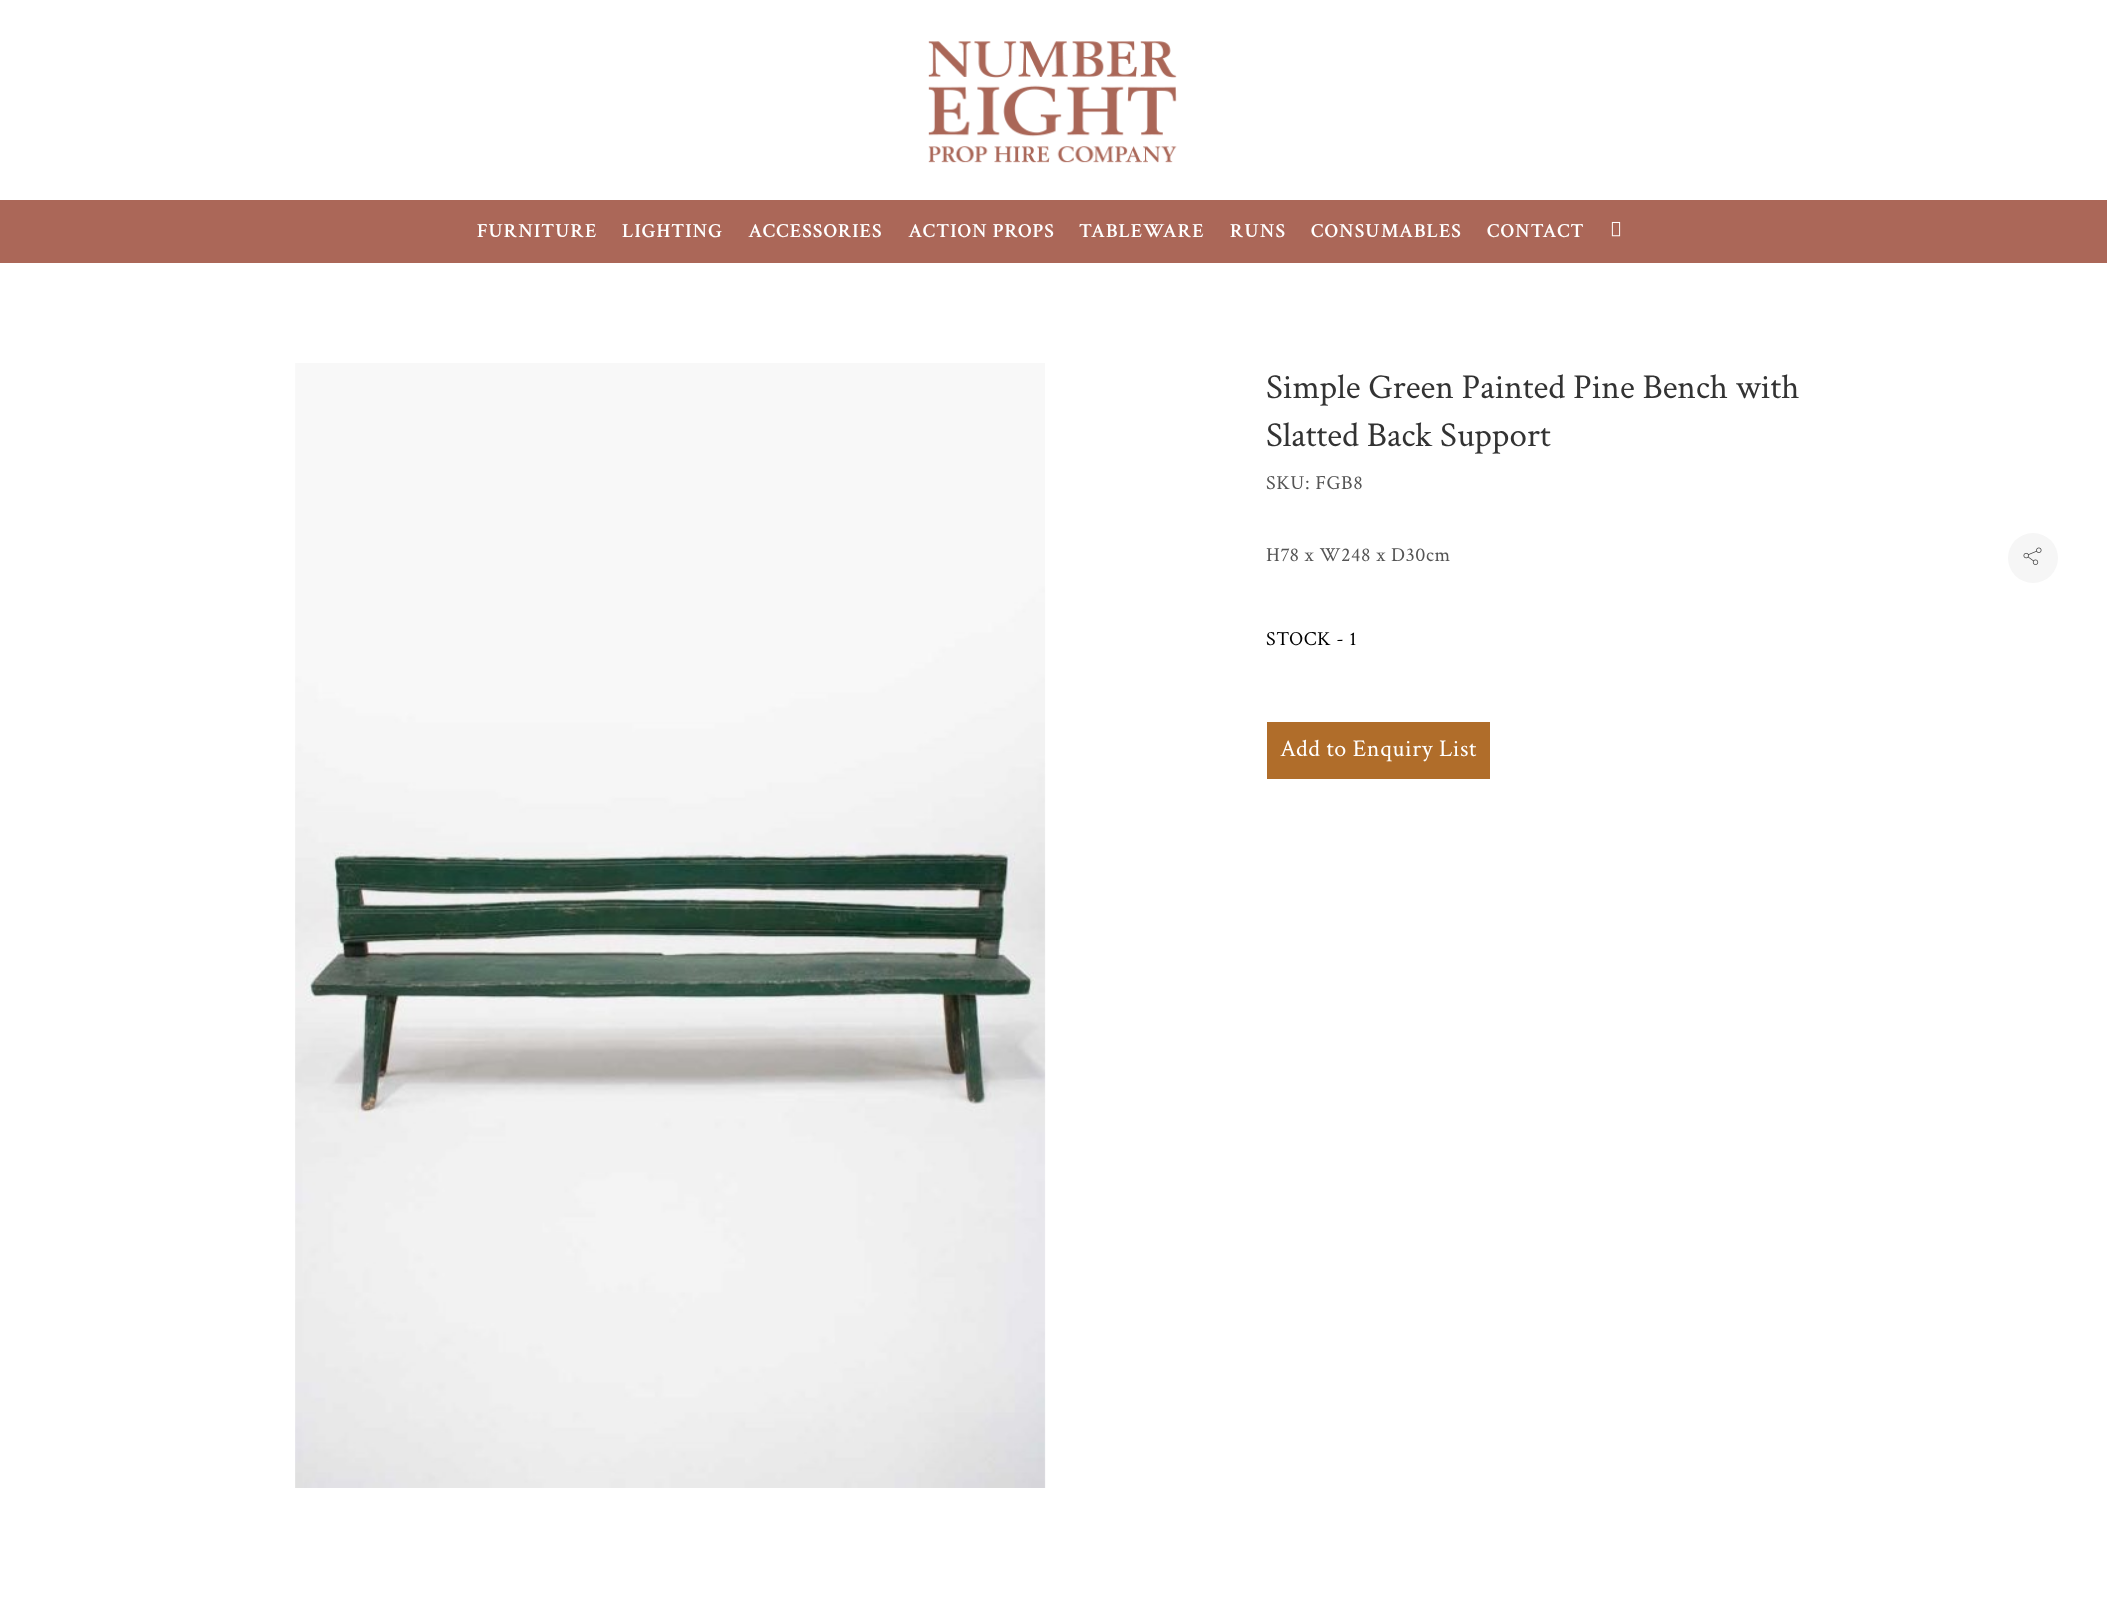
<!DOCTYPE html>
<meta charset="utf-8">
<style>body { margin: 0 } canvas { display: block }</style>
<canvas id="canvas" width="2107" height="1611"></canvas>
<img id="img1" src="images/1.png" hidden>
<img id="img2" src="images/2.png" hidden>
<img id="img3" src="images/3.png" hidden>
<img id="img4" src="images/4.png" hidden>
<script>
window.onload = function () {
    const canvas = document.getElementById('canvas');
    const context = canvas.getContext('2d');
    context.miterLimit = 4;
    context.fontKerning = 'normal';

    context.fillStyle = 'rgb(255, 255, 255)';
    context.fillRect(0, 0, 2107, 1611);
    context.drawImage(document.getElementById('img1'), 928, 41, 249, 122);
    context.fillStyle = 'rgb(171, 103, 88)';
    context.fillRect(0, 200, 2107, 63);
    context.drawImage(document.getElementById('img2'), 1611, 221, 10, 16);
    context.drawImage(document.getElementById('img3'), 295, 363, 751, 1125);
    context.fillStyle = 'rgb(246, 246, 246)';
    context.beginPath();
    context.arc(2033, 558, 25, 0, 2 * Math.PI);
    context.fill();
    context.drawImage(document.getElementById('img4'), 2023, 547, 19, 18);
    context.fillStyle = 'rgb(176, 109, 42)';
    context.fillRect(1267, 722, 223, 57);
    context.letterSpacing = '1px';
    context.font = '600 20px Crimson Text';
    context.fillStyle = 'rgb(255, 255, 255)';
    context.fillText('FURNITURE', 477, 237);
    context.fillText('LIGHTING', 622, 237);
    context.fillText('ACCESSORIES', 748, 237);
    context.fillText('ACTION PROPS', 908, 237);
    context.fillText('TABLEWARE', 1079, 237);
    context.fillText('RUNS', 1230, 237);
    context.fillText('CONSUMABLES', 1311, 237);
    context.fillText('CONTACT', 1487, 237);
    context.letterSpacing = '0px';
    context.font = '35px Crimson Text';
    context.fillStyle = 'rgb(51, 51, 51)';
    context.fillText('Simple Green Painted Pine Bench with', 1266, 398);
    context.fillText('Slatted Back Support', 1266, 446);
    context.letterSpacing = '0.6px';
    context.font = '20px Crimson Text';
    context.fillStyle = 'rgb(85, 85, 85)';
    context.fillText('SKU: FGB8', 1266, 489);
    context.fillText('H78 x W248 x D30cm', 1266, 561);
    context.fillStyle = 'rgb(0, 0, 0)';
    context.fillText('STOCK - 1', 1266, 645);
    context.font = '24px Crimson Text';
    context.fillStyle = 'rgb(255, 255, 255)';
    context.fillText('Add to Enquiry List', 1280, 756);
};
</script>
